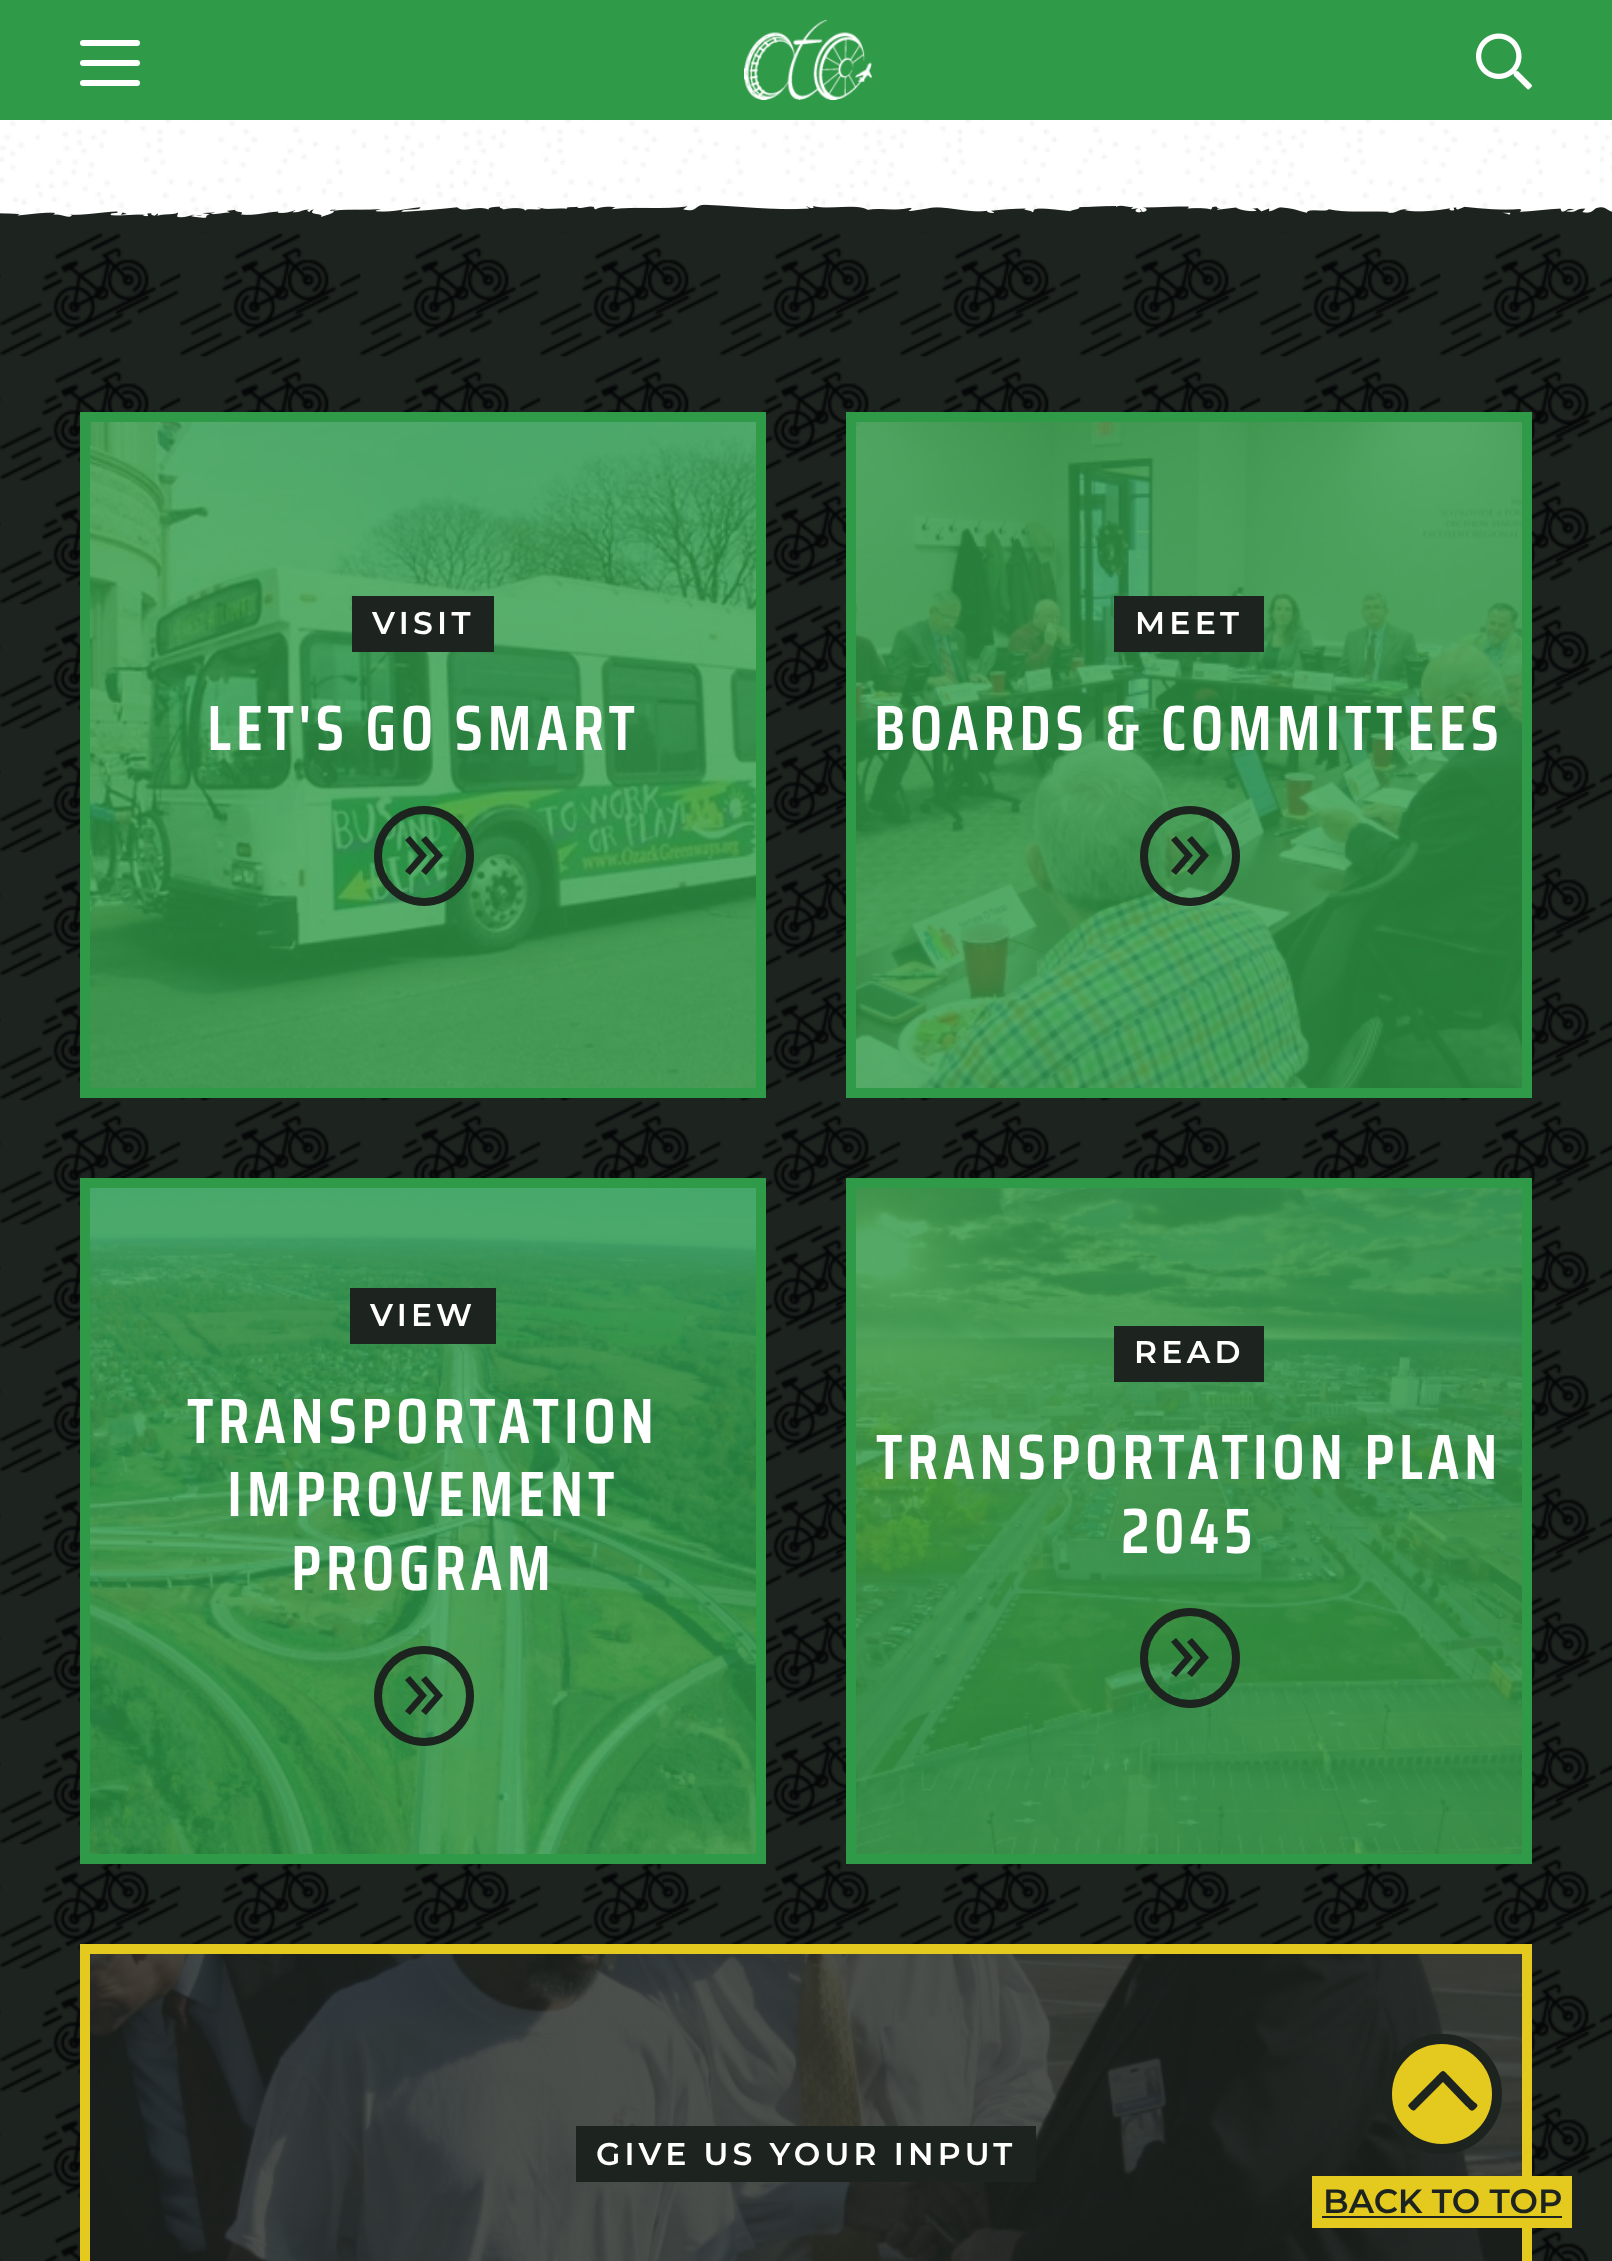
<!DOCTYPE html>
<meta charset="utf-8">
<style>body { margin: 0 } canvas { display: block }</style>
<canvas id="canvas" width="1612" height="2261"></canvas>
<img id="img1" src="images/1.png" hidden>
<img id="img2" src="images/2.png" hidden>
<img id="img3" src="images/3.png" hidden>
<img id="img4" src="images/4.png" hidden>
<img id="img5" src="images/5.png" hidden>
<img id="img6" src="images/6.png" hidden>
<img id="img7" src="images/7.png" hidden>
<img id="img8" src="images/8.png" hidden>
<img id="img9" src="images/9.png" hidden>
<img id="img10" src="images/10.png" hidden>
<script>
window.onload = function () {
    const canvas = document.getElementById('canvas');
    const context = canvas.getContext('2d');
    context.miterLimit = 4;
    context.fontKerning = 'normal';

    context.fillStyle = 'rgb(255, 255, 255)';
    context.fillRect(0, 0, 1612, 2261);
    context.drawImage(document.getElementById('img1'), 0, 120, 1612, 98);
    context.fillStyle = 'rgb(47, 154, 71)';
    context.fillRect(0, 0, 1612, 120);
    context.fillStyle = 'rgb(255, 255, 255)';
    context.beginPath();
    context.roundRect(80, 40, 60, 6, 3);
    context.fill();
    context.beginPath();
    context.roundRect(80, 60, 60, 6, 3);
    context.fill();
    context.beginPath();
    context.roundRect(80, 80, 60, 6, 3);
    context.fill();
    context.drawImage(document.getElementById('img2'), 744, 20, 128, 80);
    context.drawImage(document.getElementById('img3'), 1476, 33, 56, 57);
    context.fillStyle = 'rgb(29, 35, 31)';
    context.fillRect(0, 232, 1612, 2029);
    context.drawImage(document.getElementById('img4'), 0, 232, 1612, 2029);
    context.drawImage(document.getElementById('img5'), 0, 204, 1612, 29);
    context.drawImage(document.getElementById('img6'), 90, 422, 666, 666);
    context.strokeStyle = 'rgb(47, 154, 71)';
    context.lineWidth = 10;
    context.strokeRect(85, 417, 676, 676);
    context.fillRect(352, 596, 142, 56);
    context.beginPath();
    context.arc(424, 856, 46, 0, 2 * Math.PI);
    context.strokeStyle = 'rgb(29, 35, 31)';
    context.lineWidth = 8;
    context.stroke();
    context.beginPath();
    context.moveTo(443, 855.5);
    context.lineTo(426, 836);
    context.lineTo(421, 840);
    context.lineTo(434.5, 855.5);
    context.lineTo(421, 871);
    context.lineTo(426, 875);
    context.closePath();
    context.moveTo(427, 855.5);
    context.lineTo(410, 836);
    context.lineTo(405, 840);
    context.lineTo(418.5, 855.5);
    context.lineTo(405, 871);
    context.lineTo(410, 875);
    context.closePath();
    context.fill();
    context.drawImage(document.getElementById('img7'), 856, 422, 666, 666);
    context.strokeStyle = 'rgb(47, 154, 71)';
    context.lineWidth = 10;
    context.strokeRect(851, 417, 676, 676);
    context.fillRect(1114, 596, 150, 56);
    context.beginPath();
    context.arc(1190, 856, 46, 0, 2 * Math.PI);
    context.strokeStyle = 'rgb(29, 35, 31)';
    context.lineWidth = 8;
    context.stroke();
    context.beginPath();
    context.moveTo(1209, 855.5);
    context.lineTo(1192, 836);
    context.lineTo(1187, 840);
    context.lineTo(1200.5, 855.5);
    context.lineTo(1187, 871);
    context.lineTo(1192, 875);
    context.closePath();
    context.moveTo(1193, 855.5);
    context.lineTo(1176, 836);
    context.lineTo(1171, 840);
    context.lineTo(1184.5, 855.5);
    context.lineTo(1171, 871);
    context.lineTo(1176, 875);
    context.closePath();
    context.fill();
    context.drawImage(document.getElementById('img8'), 90, 1188, 666, 666);
    context.strokeStyle = 'rgb(47, 154, 71)';
    context.lineWidth = 10;
    context.strokeRect(85, 1183, 676, 676);
    context.fillRect(350, 1288, 146, 56);
    context.beginPath();
    context.arc(424, 1696, 46, 0, 2 * Math.PI);
    context.strokeStyle = 'rgb(29, 35, 31)';
    context.lineWidth = 8;
    context.stroke();
    context.beginPath();
    context.moveTo(443, 1695.5);
    context.lineTo(426, 1676);
    context.lineTo(421, 1680);
    context.lineTo(434.5, 1695.5);
    context.lineTo(421, 1711);
    context.lineTo(426, 1715);
    context.closePath();
    context.moveTo(427, 1695.5);
    context.lineTo(410, 1676);
    context.lineTo(405, 1680);
    context.lineTo(418.5, 1695.5);
    context.lineTo(405, 1711);
    context.lineTo(410, 1715);
    context.closePath();
    context.fill();
    context.drawImage(document.getElementById('img9'), 856, 1188, 666, 666);
    context.strokeStyle = 'rgb(47, 154, 71)';
    context.lineWidth = 10;
    context.strokeRect(851, 1183, 676, 676);
    context.fillRect(1114, 1326, 150, 56);
    context.beginPath();
    context.arc(1190, 1658, 46, 0, 2 * Math.PI);
    context.strokeStyle = 'rgb(29, 35, 31)';
    context.lineWidth = 8;
    context.stroke();
    context.beginPath();
    context.moveTo(1209, 1657.5);
    context.lineTo(1192, 1638);
    context.lineTo(1187, 1642);
    context.lineTo(1200.5, 1657.5);
    context.lineTo(1187, 1673);
    context.lineTo(1192, 1677);
    context.closePath();
    context.moveTo(1193, 1657.5);
    context.lineTo(1176, 1638);
    context.lineTo(1171, 1642);
    context.lineTo(1184.5, 1657.5);
    context.lineTo(1171, 1673);
    context.lineTo(1176, 1677);
    context.closePath();
    context.fill();
    context.drawImage(document.getElementById('img10'), 90, 1954, 1432, 307);
    context.strokeStyle = 'rgb(228, 202, 31)';
    context.lineWidth = 10;
    context.strokeRect(85, 1949, 1442, 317);
    context.fillRect(576, 2126, 460, 56);
    context.fillStyle = 'rgb(228, 202, 31)';
    context.beginPath();
    context.arc(1442, 2094, 55, 0, 2 * Math.PI);
    context.fill();
    context.strokeStyle = 'rgb(29, 35, 31)';
    context.stroke();
    context.fillStyle = 'rgb(29, 35, 31)';
    context.beginPath();
    context.moveTo(1409, 2107);
    context.bezierCurveTo(1410, 2108, 1412, 2112, 1415, 2110);
    context.lineTo(1443, 2082);
    context.lineTo(1466, 2106);
    context.bezierCurveTo(1470, 2109, 1471, 2113, 1475, 2109);
    context.bezierCurveTo(1480, 2104, 1477, 2105, 1471, 2099);
    context.lineTo(1450, 2077);
    context.bezierCurveTo(1442, 2069, 1444, 2069, 1436, 2077);
    context.lineTo(1414, 2099);
    context.bezierCurveTo(1412, 2102, 1406, 2105, 1409, 2107);
    context.closePath();
    context.fill();
    context.fillStyle = 'rgb(228, 202, 31)';
    context.fillRect(1312, 2176, 260, 52);
    context.fillStyle = 'rgb(29, 35, 31)';
    context.fillRect(1322, 2216, 240, 2);
    context.letterSpacing = '4.25px';
    context.font = '600 31.5px Montserrat';
    context.fillStyle = 'rgb(255, 255, 255)';
    context.fillText('VISIT', 372, 634);
    context.letterSpacing = '4.6px';
    context.font = '600 64px Saira Condensed';
    context.fillText('LET\'S GO SMART', 207, 750);
    context.letterSpacing = '4.25px';
    context.font = '600 31.5px Montserrat';
    context.fillText('MEET', 1135, 634);
    context.letterSpacing = '4.6px';
    context.font = '600 64px Saira Condensed';
    context.fillText('BOARDS & COMMITTEES', 874, 750);
    context.letterSpacing = '4.25px';
    context.font = '600 31.5px Montserrat';
    context.fillText('VIEW', 370, 1326);
    context.letterSpacing = '4.6px';
    context.font = '600 64px Saira Condensed';
    context.fillText('TRANSPORTATION', 187, 1443);
    context.fillText('IMPROVEMENT', 227, 1516);
    context.fillText('PROGRAM', 291, 1590);
    context.letterSpacing = '4.25px';
    context.font = '600 31.5px Montserrat';
    context.fillText('READ', 1134, 1363);
    context.letterSpacing = '4.6px';
    context.font = '600 64px Saira Condensed';
    context.fillText('TRANSPORTATION PLAN', 876, 1479);
    context.fillText('2045', 1121, 1553);
    context.letterSpacing = '4.25px';
    context.font = '600 31.5px Montserrat';
    context.fillText('GIVE US YOUR INPUT', 596, 2165);
    context.letterSpacing = '0px';
    context.font = '600 33.75px Montserrat';
    context.fillStyle = 'rgb(29, 35, 31)';
    context.fillText('BACK TO TOP', 1323, 2213);
};
</script>
